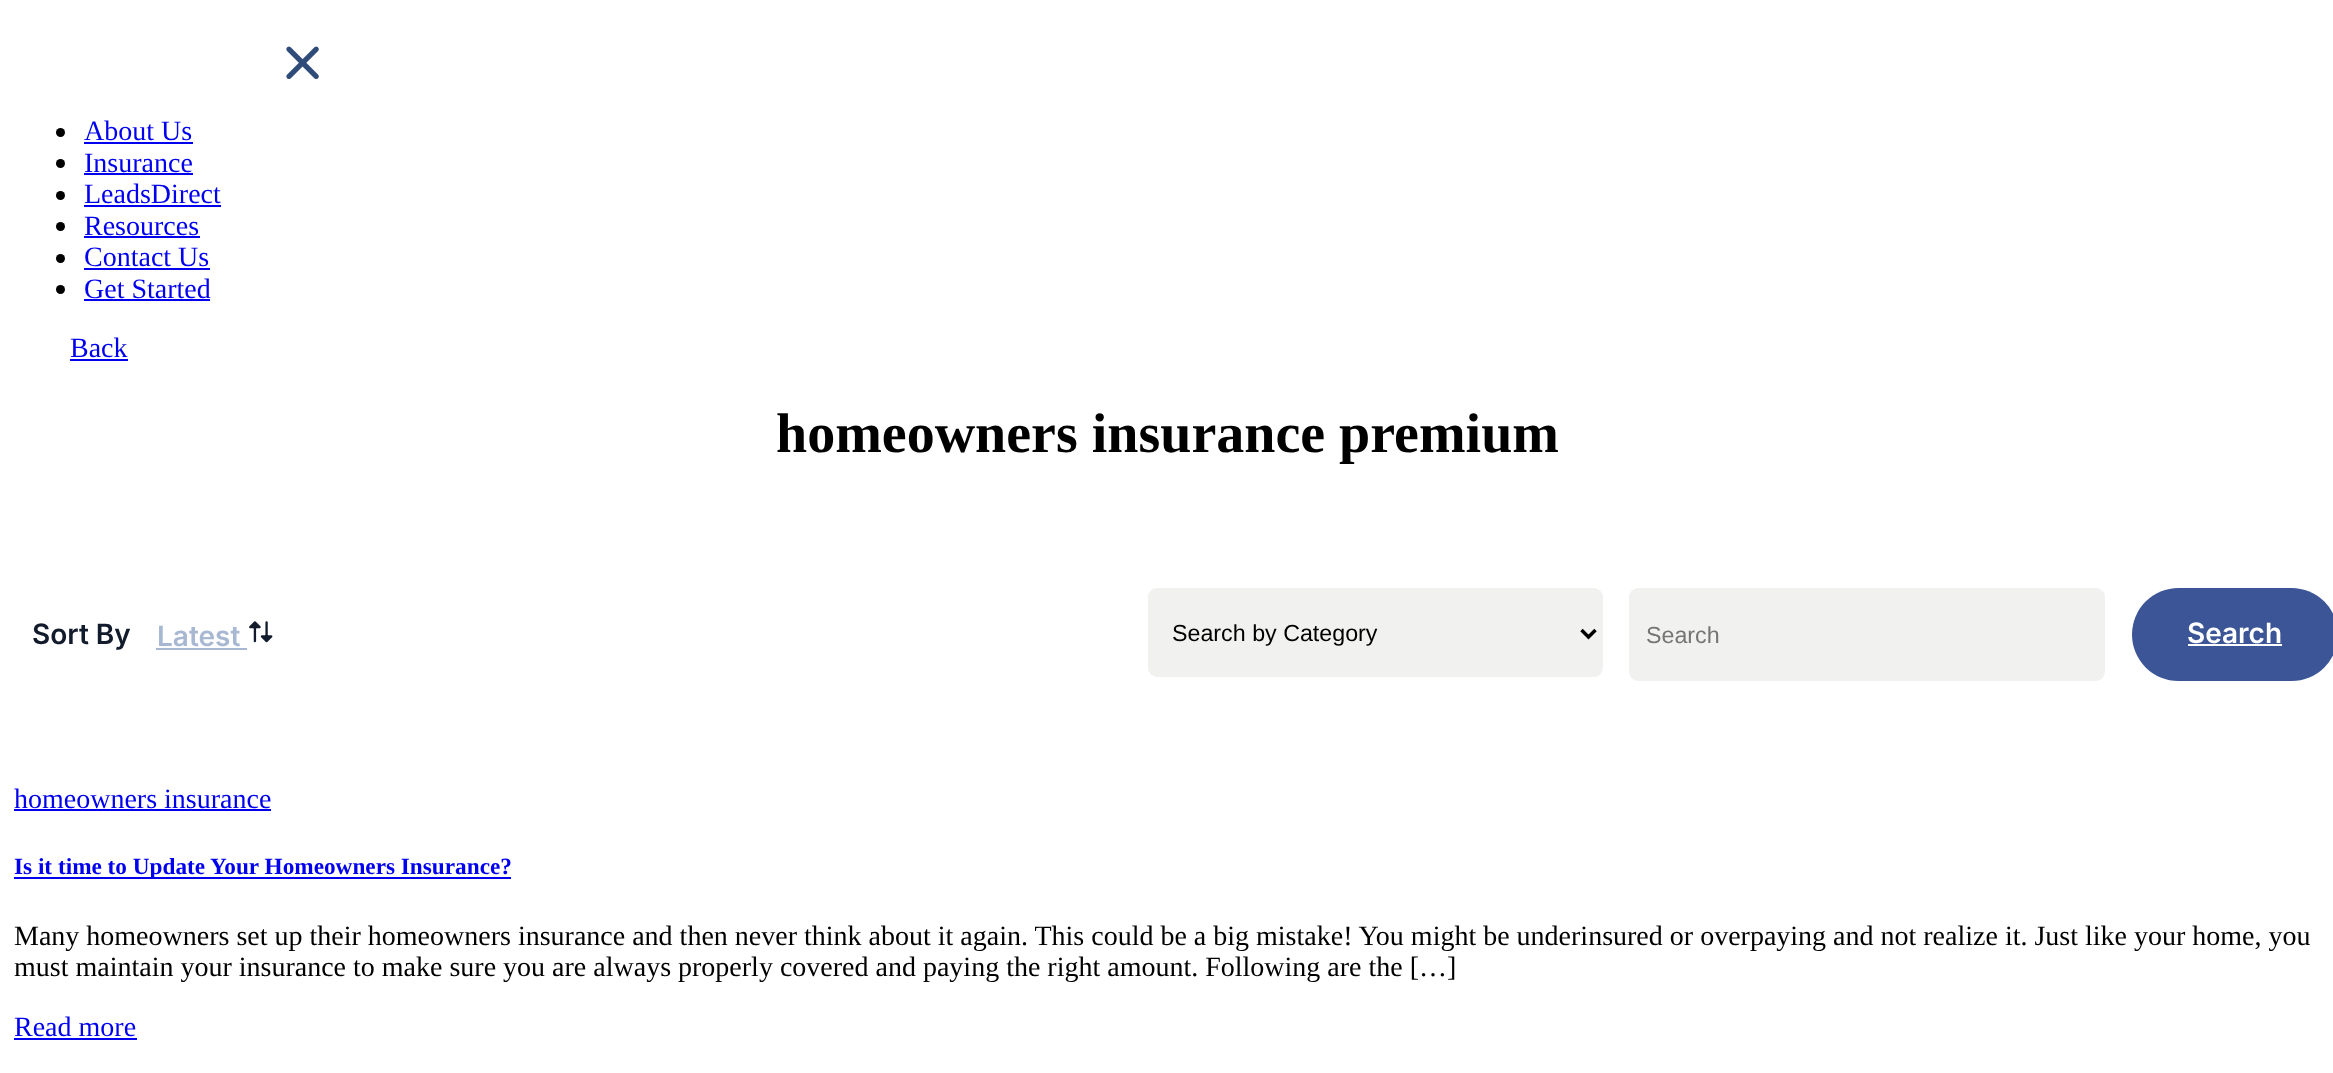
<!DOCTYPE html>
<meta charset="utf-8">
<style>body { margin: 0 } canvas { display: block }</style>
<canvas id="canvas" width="2333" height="1073"></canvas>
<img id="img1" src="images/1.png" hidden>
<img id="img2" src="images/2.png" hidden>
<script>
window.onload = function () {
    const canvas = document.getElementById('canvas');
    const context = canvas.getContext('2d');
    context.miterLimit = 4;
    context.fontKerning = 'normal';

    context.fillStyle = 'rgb(255, 255, 255)';
    context.fillRect(0, 0, 2333, 1073);
    context.drawImage(document.getElementById('img1'), 286, 46, 33, 33);
    context.fillStyle = 'rgb(0, 0, 0)';
    context.beginPath();
    context.arc(60.5, 132.5, 4.5, 0, 2 * Math.PI);
    context.fill();
    context.fillStyle = 'rgb(0, 0, 238)';
    context.fillRect(84, 142, 109, 2);
    context.fillStyle = 'rgb(0, 0, 0)';
    context.beginPath();
    context.arc(60.5, 163.5, 4.5, 0, 2 * Math.PI);
    context.fill();
    context.fillStyle = 'rgb(0, 0, 238)';
    context.fillRect(84, 173, 109, 2);
    context.fillStyle = 'rgb(0, 0, 0)';
    context.beginPath();
    context.arc(60.5, 195.5, 4.5, 0, 2 * Math.PI);
    context.fill();
    context.fillStyle = 'rgb(0, 0, 238)';
    context.fillRect(84, 205, 137, 2);
    context.fillStyle = 'rgb(0, 0, 0)';
    context.beginPath();
    context.arc(60.5, 226.5, 4.5, 0, 2 * Math.PI);
    context.fill();
    context.fillStyle = 'rgb(0, 0, 238)';
    context.fillRect(84, 236, 116, 2);
    context.fillStyle = 'rgb(0, 0, 0)';
    context.beginPath();
    context.arc(60.5, 258.5, 4.5, 0, 2 * Math.PI);
    context.fill();
    context.fillStyle = 'rgb(0, 0, 238)';
    context.fillRect(84, 268, 126, 2);
    context.fillStyle = 'rgb(0, 0, 0)';
    context.beginPath();
    context.arc(60.5, 289.5, 4.5, 0, 2 * Math.PI);
    context.fill();
    context.fillStyle = 'rgb(0, 0, 238)';
    context.fillRect(84, 299, 126, 2);
    context.fillRect(70, 359, 58, 2);
    context.fillStyle = 'rgb(168, 184, 210)';
    context.fillRect(156, 648, 91, 2);
    context.drawImage(document.getElementById('img2'), 249, 621, 24, 22);
    context.fillStyle = 'rgb(241, 242, 240)';
    context.beginPath();
    context.roundRect(1148, 588, 455, 89, 9);
    context.fill();
    context.beginPath();
    context.moveTo(1581.5, 630);
    context.lineTo(1588.5, 637);
    context.lineTo(1595.5, 630);
    context.strokeStyle = 'rgb(0, 0, 0)';
    context.lineWidth = 3.5;
    context.stroke();
    context.beginPath();
    context.roundRect(1629, 588, 476, 93, 9);
    context.fill();
    context.fillStyle = 'rgb(59, 85, 150)';
    context.beginPath();
    context.roundRect(2132, 588, 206, 93, 46.5);
    context.fill();
    context.fillStyle = 'rgb(255, 255, 255)';
    context.fillRect(2188, 644, 94, 2);
    context.fillStyle = 'rgb(0, 0, 238)';
    context.fillRect(14, 809, 257, 2);
    context.fillRect(14, 877, 497, 2);
    context.fillRect(14, 1038, 123, 2);
    context.font = '28px Liberation Serif';
    context.fillText('About Us', 84, 140);
    context.fillText('Insurance', 84, 172);
    context.fillText('LeadsDirect', 84, 203);
    context.fillText('Resources', 84, 235);
    context.fillText('Contact Us', 84, 266);
    context.fillText('Get Started', 84, 298);
    context.fillText('Back', 70, 357);
    context.font = 'bold 56px Liberation Serif';
    context.fillStyle = 'rgb(0, 0, 0)';
    context.fillText('homeowners insurance premium', 776, 452);
    context.font = '600 28px Inter';
    context.fillStyle = 'rgb(18, 27, 44)';
    context.fillText('Sort By', 32, 644);
    context.fillStyle = 'rgb(168, 184, 210)';
    context.fillText('Latest', 157, 646);
    context.font = '23.25px Liberation Sans';
    context.fillStyle = 'rgb(0, 0, 0)';
    context.fillText('Search by Category', 1172, 641);
    context.fillStyle = 'rgb(117, 117, 117)';
    context.fillText('Search', 1646, 643);
    context.font = '600 28px Inter';
    context.fillStyle = 'rgb(255, 255, 255)';
    context.fillText('Search', 2187, 643);
    context.font = '28px Liberation Serif';
    context.fillStyle = 'rgb(0, 0, 238)';
    context.fillText('homeowners insurance', 14, 808);
    context.font = 'bold 23.25px Liberation Serif';
    context.fillText('Is it time to Update Your Homeowners Insurance?', 14, 874);
    context.font = '28px Liberation Serif';
    context.fillStyle = 'rgb(0, 0, 0)';
    context.fillText('Many homeowners set up their homeowners insurance and then never think about it again. This could be a big mistake! You might be underinsured or overpaying and not realize it. Just like your home, you', 14, 945);
    context.fillText('must maintain your insurance to make sure you are always properly covered and paying the right amount. Following are the […]', 14, 976);
    context.fillStyle = 'rgb(0, 0, 238)';
    context.fillText('Read more', 14, 1036);
};
</script>
